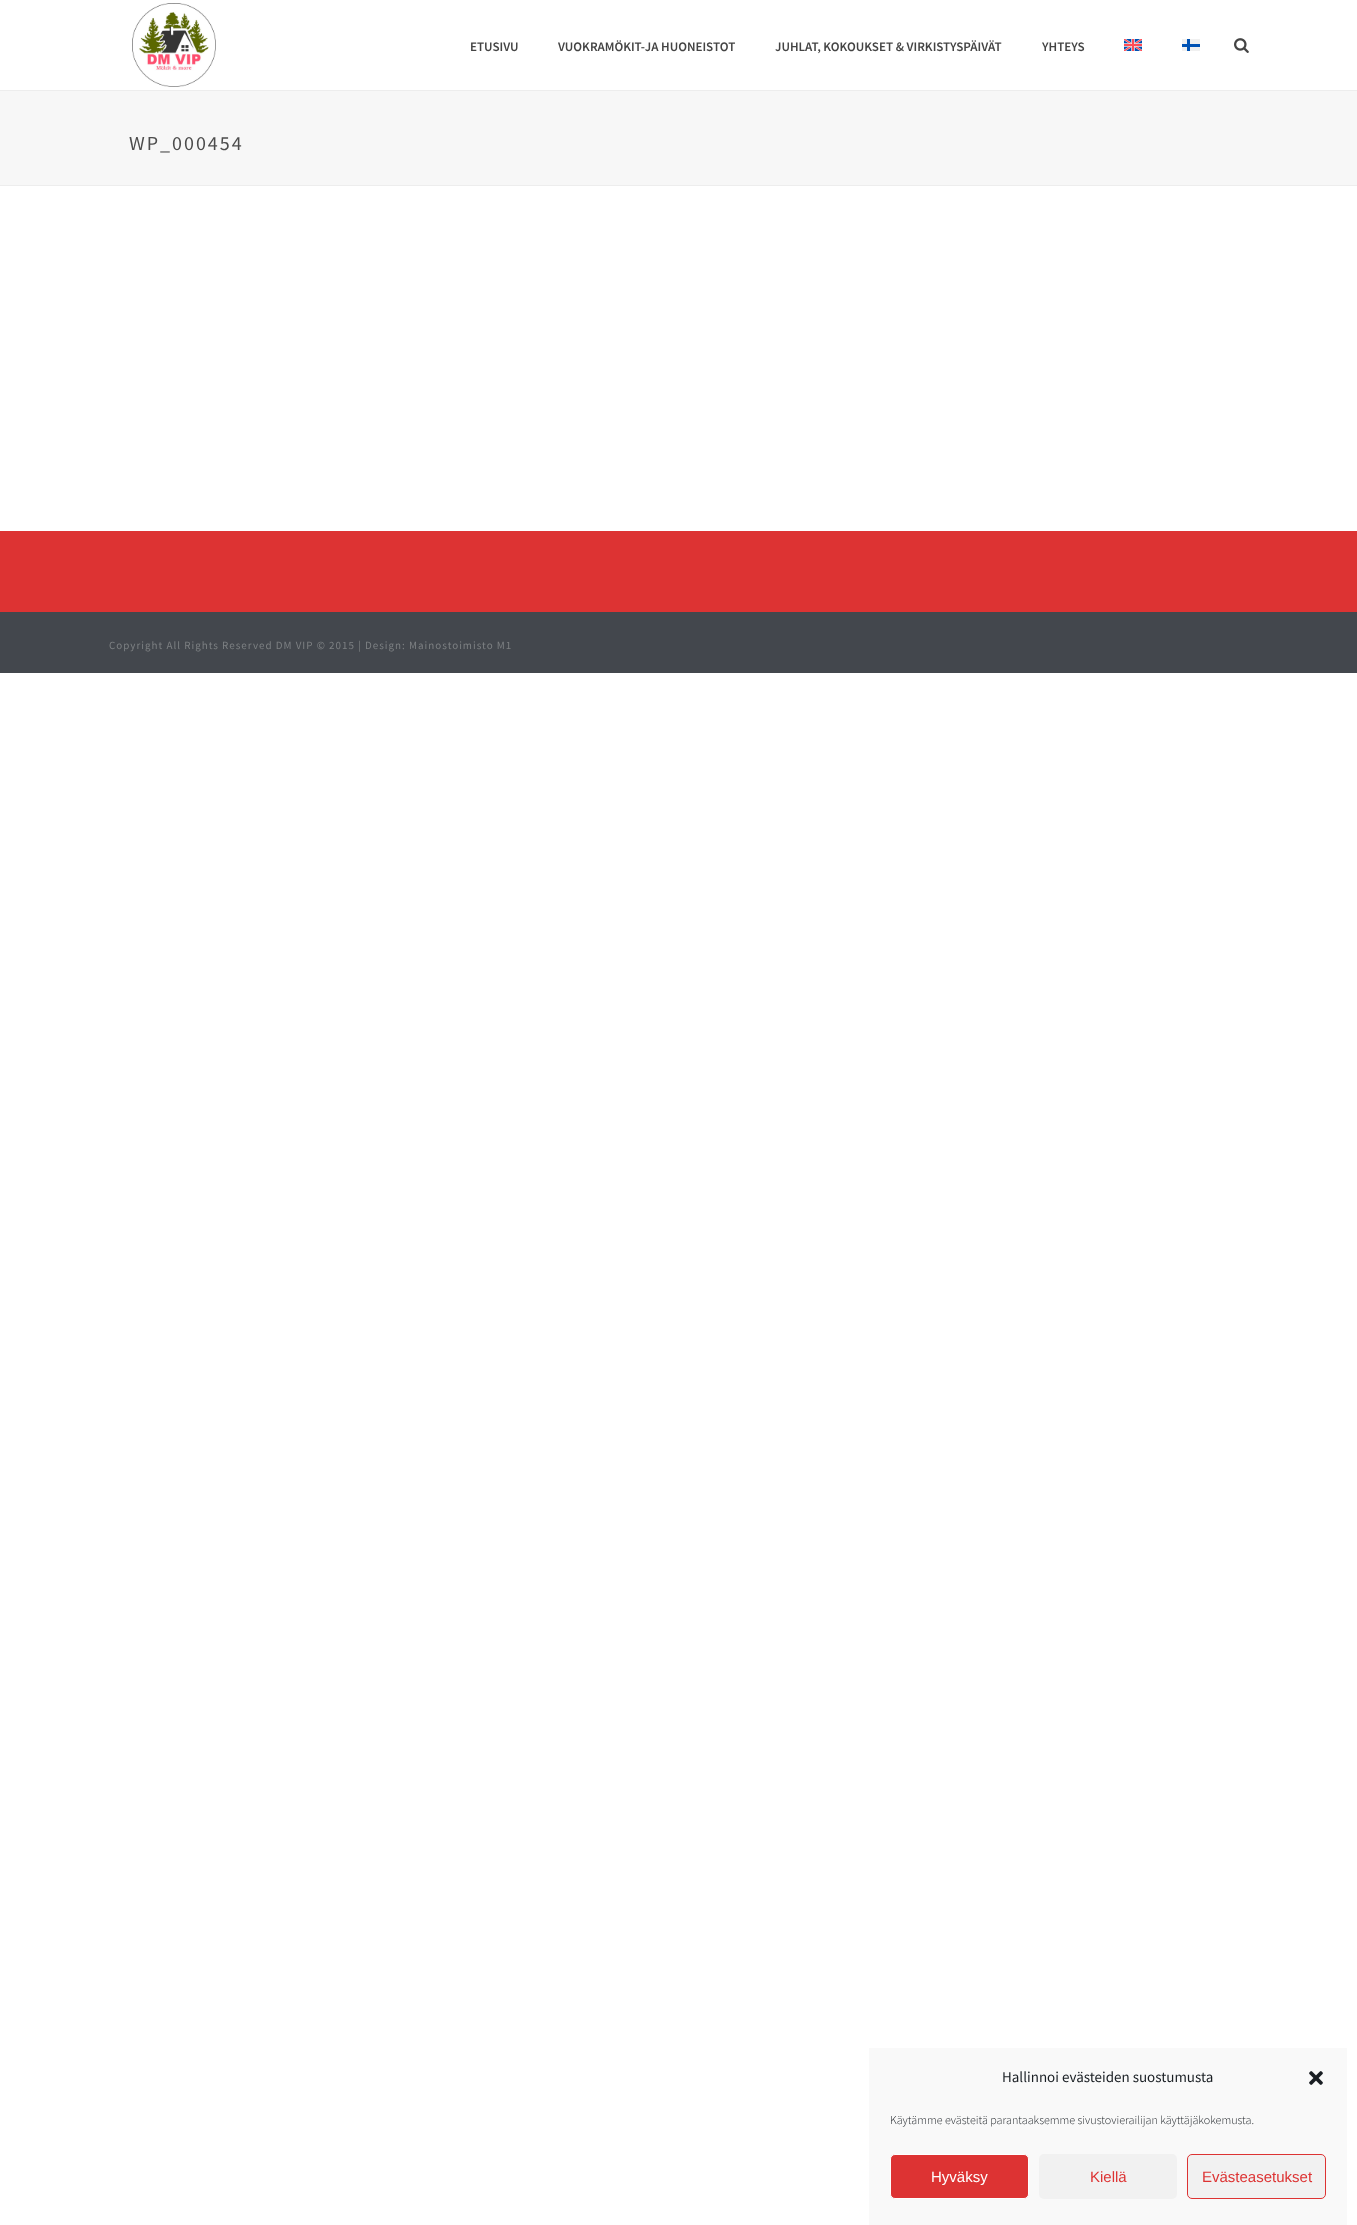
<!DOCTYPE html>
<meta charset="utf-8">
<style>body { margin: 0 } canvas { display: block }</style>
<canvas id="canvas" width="1357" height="2225"></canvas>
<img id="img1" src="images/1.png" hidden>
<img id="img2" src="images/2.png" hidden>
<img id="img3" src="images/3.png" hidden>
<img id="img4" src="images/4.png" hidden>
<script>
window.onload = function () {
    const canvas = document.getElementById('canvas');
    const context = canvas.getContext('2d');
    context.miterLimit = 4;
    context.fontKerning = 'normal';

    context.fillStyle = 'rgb(255, 255, 255)';
    context.fillRect(0, 0, 1357, 2225);
    context.fillStyle = 'rgb(247, 247, 247)';
    context.fillRect(0, 91, 1357, 94);
    context.fillStyle = 'rgb(237, 237, 237)';
    context.fillRect(0, 185, 1357, 1);
    context.fillRect(0, 90, 1357, 1);
    context.drawImage(document.getElementById('img1'), 132, 3, 84, 84);
    context.drawImage(document.getElementById('img2'), 1124, 39, 18, 12);
    context.fillStyle = 'rgb(240, 240, 240)';
    context.fillRect(1182, 39, 18, 12);
    context.fillStyle = 'rgb(0, 82, 180)';
    context.fillRect(1182, 44, 18, 3);
    context.fillRect(1187, 39, 3, 12);
    context.drawImage(document.getElementById('img3'), 1234, 38, 15, 15);
    context.fillStyle = 'rgb(221, 51, 51)';
    context.fillRect(0, 531, 1357, 81);
    context.fillStyle = 'rgb(67, 71, 77)';
    context.fillRect(0, 612, 1357, 61);
    context.fillStyle = 'rgb(249, 249, 249)';
    context.fillRect(869, 2048, 478, 177);
    context.drawImage(document.getElementById('img4'), 1309, 2071, 14, 14);
    context.fillStyle = 'rgb(221, 51, 51)';
    context.beginPath();
    context.roundRect(890.5, 2154.5, 138, 44, 4.5);
    context.fill();
    context.strokeStyle = 'rgb(255, 255, 255)';
    context.stroke();
    context.fillStyle = 'rgb(241, 241, 241)';
    context.beginPath();
    context.roundRect(1039, 2154, 138, 45, 5);
    context.fill();
    context.beginPath();
    context.roundRect(1187.5, 2154.5, 138, 44, 4.5);
    context.fill();
    context.strokeStyle = 'rgb(221, 51, 51)';
    context.stroke();
    context.font = '600 13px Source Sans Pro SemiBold';
    context.fillStyle = 'rgb(68, 68, 68)';
    context.fillText('ETUSIVU', 470, 51);
    context.fillText('VUOKRAMÖKIT-JA HUONEISTOT', 558, 51);
    context.fillText('JUHLAT, KOKOUKSET & VIRKISTYSPÄIVÄT', 775, 51);
    context.fillText('YHTEYS', 1042, 51);
    context.letterSpacing = '2px';
    context.font = '20px Source Sans Pro';
    context.fillStyle = 'rgb(77, 77, 77)';
    context.fillText('WP_000454', 129, 150);
    context.letterSpacing = '1px';
    context.font = '11px Source Sans Pro';
    context.fillStyle = 'rgb(125, 128, 131)';
    context.fillText('Copyright All Rights Reserved DM VIP © 2015 | Design: Mainostoimisto M1', 109, 649);
    context.letterSpacing = '0px';
    context.font = '15px Source Sans Pro';
    context.fillStyle = 'rgb(25, 30, 35)';
    context.fillText('Hallinnoi evästeiden suostumusta', 1002, 2082);
    context.font = '300 12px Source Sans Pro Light';
    context.fillText('Käytämme evästeitä parantaaksemme sivustovierailijan käyttäjäkokemusta.', 890, 2124);
    context.font = '15px Liberation Sans';
    context.fillStyle = 'rgb(255, 255, 255)';
    context.fillText('Hyväksy', 931, 2182);
    context.fillStyle = 'rgb(221, 51, 51)';
    context.fillText('Kiellä', 1090, 2182);
    context.fillText('Evästeasetukset', 1202, 2182);
};
</script>
